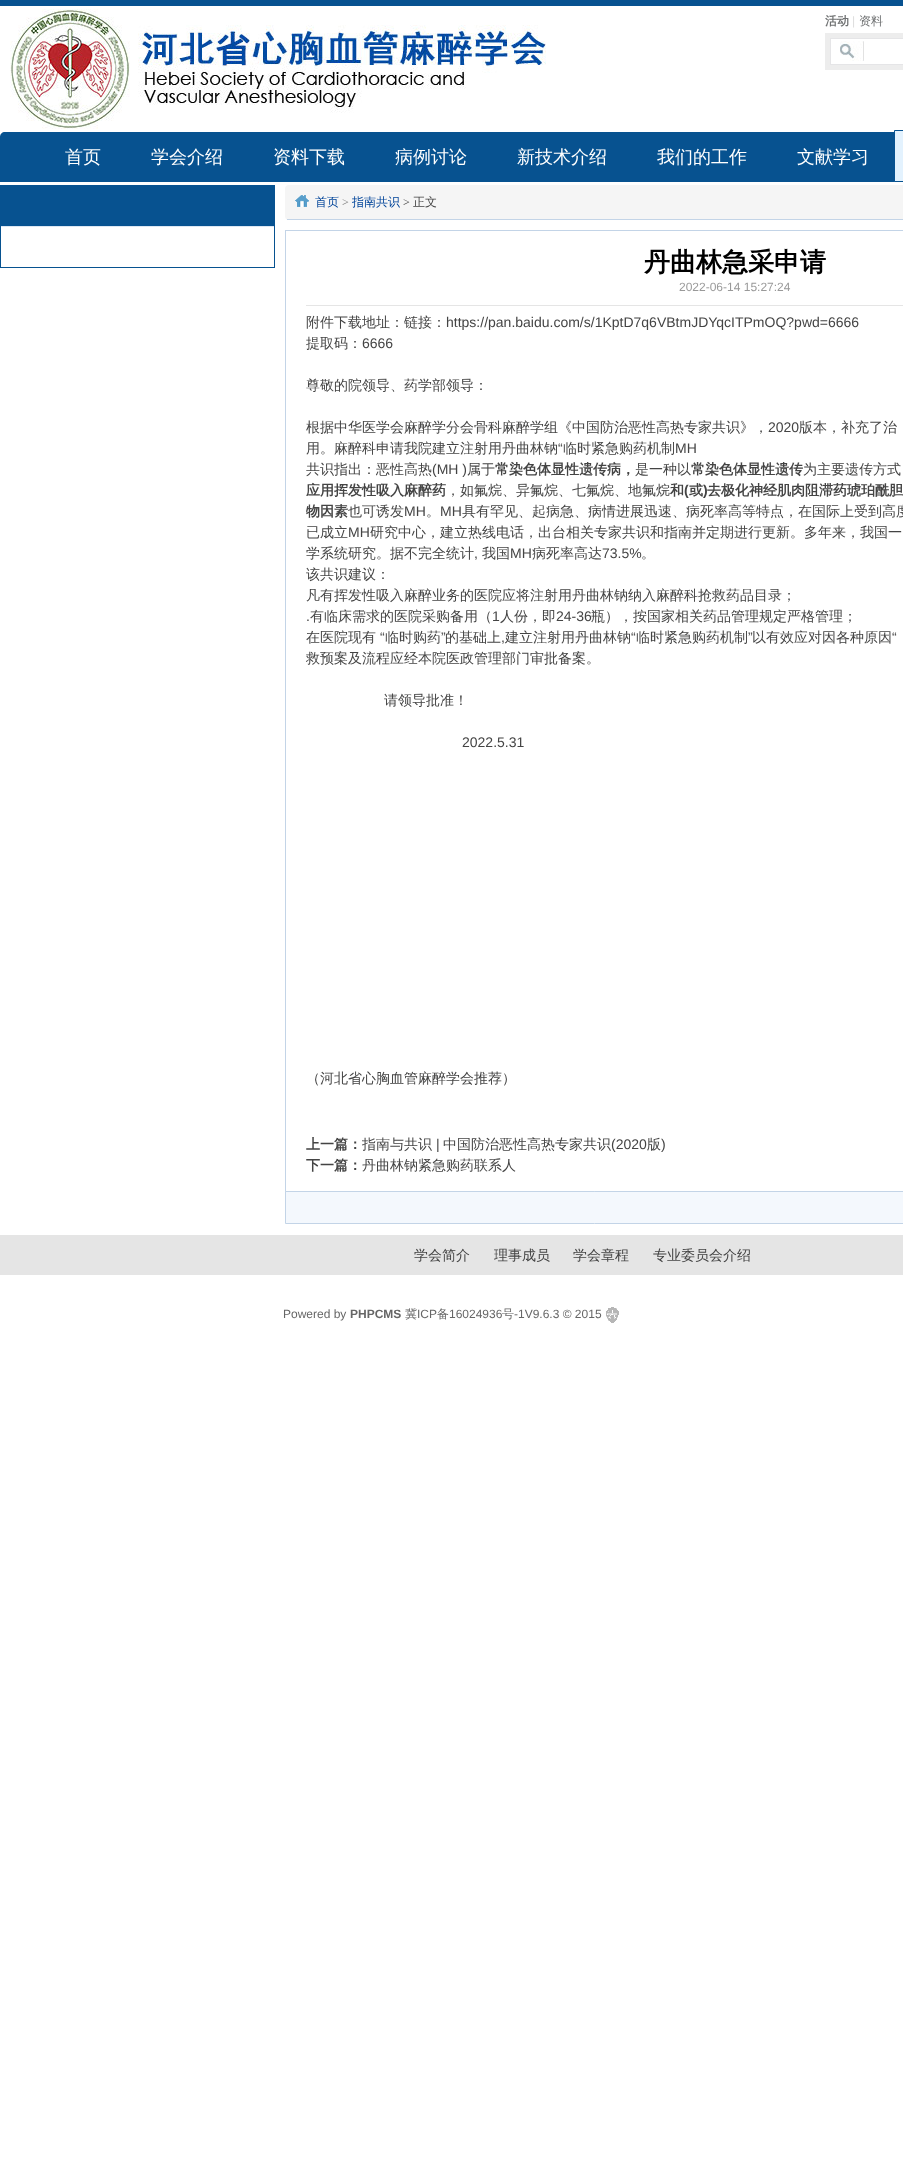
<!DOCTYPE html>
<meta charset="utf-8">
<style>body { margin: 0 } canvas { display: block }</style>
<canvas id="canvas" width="903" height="2176"></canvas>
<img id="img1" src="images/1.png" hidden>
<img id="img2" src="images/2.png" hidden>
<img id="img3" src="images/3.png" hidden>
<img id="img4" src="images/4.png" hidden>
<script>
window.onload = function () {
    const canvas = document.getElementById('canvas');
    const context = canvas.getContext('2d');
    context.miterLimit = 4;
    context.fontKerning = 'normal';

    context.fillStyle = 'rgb(255, 255, 255)';
    context.fillRect(0, 0, 903, 2176);
    context.fillStyle = 'rgb(7, 82, 144)';
    context.fillRect(0, 0, 903, 6);
    context.drawImage(document.getElementById('img1'), 10, 9, 536, 120);
    context.fillStyle = 'rgb(237, 237, 237)';
    context.fillRect(825, 33, 78, 37);
    context.fillStyle = 'rgb(255, 255, 255)';
    context.fillRect(831, 39, 72, 25);
    context.drawImage(document.getElementById('img2'), 840, 41, 24, 20);
    context.strokeStyle = 'rgb(229, 229, 231)';
    context.strokeRect(830.5, 38.5, 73, 26);
    context.fillStyle = 'rgb(7, 82, 144)';
    context.beginPath();
    context.moveTo(5, 132);
    context.lineTo(903, 132);
    context.bezierCurveTo(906, 132, 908, 134, 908, 137);
    context.lineTo(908, 182);
    context.lineTo(0, 182);
    context.lineTo(0, 137);
    context.bezierCurveTo(0, 134, 2, 132, 5, 132);
    context.closePath();
    context.fill();
    context.fillStyle = 'rgb(227, 242, 254)';
    context.beginPath();
    context.rect(894.5, 130.5, 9, 51);
    context.fill();
    context.strokeStyle = 'rgb(7, 82, 144)';
    context.stroke();
    context.strokeRect(0.5, 185.5, 274, 82);
    context.fillStyle = 'rgb(7, 82, 144)';
    context.fillRect(1, 186, 273, 40);
    context.fillStyle = 'rgb(220, 231, 243)';
    context.fillRect(1, 226, 273, 1);
    context.fillStyle = 'rgb(245, 245, 245)';
    context.beginPath();
    context.roundRect(285, 185, 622, 35, 4);
    context.fill();
    context.drawImage(document.getElementById('img3'), 295, 195, 14, 12);
    context.fillStyle = 'rgb(195, 212, 231)';
    context.fillRect(287, 219, 616, 1);
    context.strokeStyle = 'rgb(195, 212, 231)';
    context.strokeRect(285.5, 230.5, 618, 961);
    context.fillStyle = 'rgb(229, 229, 229)';
    context.fillRect(306, 305, 597, 1);
    context.fillStyle = 'rgb(244, 248, 253)';
    context.beginPath();
    context.rect(285.5, 1191.5, 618, 32);
    context.fill();
    context.stroke();
    context.fillStyle = 'rgb(229, 229, 229)';
    context.fillRect(0, 1235, 903, 40);
    context.drawImage(document.getElementById('img4'), 606, 1307, 13, 16);
    context.font = 'bold 12px WenQuanYi Zen Hei';
    context.fillStyle = 'rgb(111, 113, 114)';
    context.fillText('活动', 825, 25);
    context.font = '12px Liberation Sans';
    context.fillStyle = 'rgb(221, 221, 221)';
    context.fillText('|', 852, 25);
    context.font = '500 12px WenQuanYi Zen Hei';
    context.fillStyle = 'rgb(111, 113, 114)';
    context.fillText('资料', 859, 25);
    context.font = '500 18px WenQuanYi Zen Hei';
    context.fillStyle = 'rgb(255, 255, 255)';
    context.fillText('首页', 65, 163);
    context.fillText('学会介绍', 151, 163);
    context.fillText('资料下载', 273, 163);
    context.fillText('病例讨论', 395, 163);
    context.fillText('新技术介绍', 517, 163);
    context.fillText('我们的工作', 657, 163);
    context.fillText('文献学习', 797, 163);
    context.font = '500 12px WenQuanYi Zen Hei';
    context.fillStyle = 'rgb(0, 68, 153)';
    context.fillText('首页', 315, 206);
    context.font = '12px Liberation Serif';
    context.fillStyle = 'rgb(126, 126, 126)';
    context.fillText('>', 342, 206);
    context.font = '500 12px WenQuanYi Zen Hei';
    context.fillStyle = 'rgb(0, 68, 153)';
    context.fillText('指南共识', 352, 206);
    context.font = '12px Liberation Serif';
    context.fillStyle = 'rgb(68, 68, 68)';
    context.fillText('>', 403, 206);
    context.font = '500 12px WenQuanYi Zen Hei';
    context.fillText('正文', 413, 206);
    context.font = 'bold 26px WenQuanYi Zen Hei';
    context.fillStyle = 'rgb(0, 0, 0)';
    context.fillText('丹曲林急采申请', 644, 271);
    context.font = '12px Liberation Sans';
    context.fillStyle = 'rgb(153, 153, 153)';
    context.fillText('2022-06-14 15:27:24', 679, 291);
    context.font = '500 14px WenQuanYi Zen Hei';
    context.fillStyle = 'rgb(68, 68, 68)';
    context.fillText('附件下载地址：链接：', 306, 327);
    context.font = '14px Liberation Sans';
    context.fillText('https://pan.baidu.com/s/1KptD7q6VBtmJDYqcITPmOQ?pwd=6666', 446, 327);
    context.font = '500 14px WenQuanYi Zen Hei';
    context.fillText('提取码：', 306, 348);
    context.font = '14px Liberation Sans';
    context.fillText('6666', 362, 348);
    context.font = '500 14px WenQuanYi Zen Hei';
    context.fillText('尊敬的院领导、药学部领导：', 306, 390);
    context.fillText('根据中华医学会麻醉学分会骨科麻醉学组《中国防治恶性高热专家共识》，', 306, 432);
    context.font = '14px Liberation Sans';
    context.fillText('2020', 768, 432);
    context.font = '500 14px WenQuanYi Zen Hei';
    context.fillText('版本，补充了治', 799, 432);
    context.fillText('用。麻醉科申请我院建立注射用丹曲林钠', 306, 453);
    context.font = '14px Liberation Sans';
    context.fillText('“', 558, 453);
    context.font = '500 14px WenQuanYi Zen Hei';
    context.fillText('临时紧急购药机制', 563, 453);
    context.font = '14px Liberation Sans';
    context.fillText('MH', 675, 453);
    context.font = '500 14px WenQuanYi Zen Hei';
    context.fillText('共识指出：恶性高热', 306, 474);
    context.font = '14px Liberation Sans';
    context.fillText('(MH )', 432, 474);
    context.font = '500 14px WenQuanYi Zen Hei';
    context.fillText('属于', 467, 474);
    context.font = 'bold 14px WenQuanYi Zen Hei';
    context.fillText('常染色体显性遗传病，', 495, 474);
    context.font = '500 14px WenQuanYi Zen Hei';
    context.fillText('是一种以', 635, 474);
    context.font = 'bold 14px WenQuanYi Zen Hei';
    context.fillText('常染色体显性遗传', 691, 474);
    context.font = '500 14px WenQuanYi Zen Hei';
    context.fillText('为主要遗传方式', 803, 474);
    context.font = 'bold 14px WenQuanYi Zen Hei';
    context.fillText('应用挥发性吸入麻醉药', 306, 495);
    context.font = '500 14px WenQuanYi Zen Hei';
    context.fillText('，如氟烷、异氟烷、七氟烷、地氟烷', 446, 495);
    context.font = 'bold 14px WenQuanYi Zen Hei';
    context.fillText('和', 670, 495);
    context.font = 'bold 14px Liberation Sans';
    context.fillText('(', 684, 495);
    context.font = 'bold 14px WenQuanYi Zen Hei';
    context.fillText('或', 689, 495);
    context.font = 'bold 14px Liberation Sans';
    context.fillText(')', 703, 495);
    context.font = 'bold 14px WenQuanYi Zen Hei';
    context.fillText('去极化神经肌肉阻滞药琥珀酰胆', 707, 495);
    context.fillText('物因素', 306, 516);
    context.font = '500 14px WenQuanYi Zen Hei';
    context.fillText('也可诱发', 348, 516);
    context.font = '14px Liberation Sans';
    context.fillText('MH', 404, 516);
    context.font = '500 14px WenQuanYi Zen Hei';
    context.fillText('。', 426, 516);
    context.font = '14px Liberation Sans';
    context.fillText('MH', 440, 516);
    context.font = '500 14px WenQuanYi Zen Hei';
    context.fillText('具有罕见、起病急、病情进展迅速、病死率高等特点，在国际上受到高度', 462, 516);
    context.fillText('已成立', 306, 537);
    context.font = '14px Liberation Sans';
    context.fillText('MH', 348, 537);
    context.font = '500 14px WenQuanYi Zen Hei';
    context.fillText('研究中心，建立热线电话，出台相关专家共识和指南并定期进行更新。多年来，我国一', 370, 537);
    context.fillText('学系统研究。据不完全统计', 306, 558);
    context.font = '14px Liberation Sans';
    context.fillText(',', 474, 558);
    context.font = '500 14px WenQuanYi Zen Hei';
    context.fillText('我国', 482, 558);
    context.font = '14px Liberation Sans';
    context.fillText('MH', 510, 558);
    context.font = '500 14px WenQuanYi Zen Hei';
    context.fillText('病死率高达', 532, 558);
    context.font = '14px Liberation Sans';
    context.fillText('73.5%', 602, 558);
    context.font = '500 14px WenQuanYi Zen Hei';
    context.fillText('。', 641, 558);
    context.fillText('该共识建议：', 306, 579);
    context.fillText('凡有挥发性吸入麻醉业务的医院应将注射用丹曲林钠纳入麻醉科抢救药品目录；', 306, 600);
    context.font = '14px Liberation Sans';
    context.fillText('.', 306, 621);
    context.font = '500 14px WenQuanYi Zen Hei';
    context.fillText('有临床需求的医院采购备用（', 310, 621);
    context.font = '14px Liberation Sans';
    context.fillText('1', 492, 621);
    context.font = '500 14px WenQuanYi Zen Hei';
    context.fillText('人份，即', 500, 621);
    context.font = '14px Liberation Sans';
    context.fillText('24-36', 556, 621);
    context.font = '500 14px WenQuanYi Zen Hei';
    context.fillText('瓶），按国家相关药品管理规定严格管理；', 591, 621);
    context.fillText('在医院现有', 306, 642);
    context.font = '14px Liberation Sans';
    context.fillText('“', 380, 642);
    context.font = '500 14px WenQuanYi Zen Hei';
    context.fillText('临时购药', 385, 642);
    context.font = '14px Liberation Sans';
    context.fillText('”', 441, 642);
    context.font = '500 14px WenQuanYi Zen Hei';
    context.fillText('的基础上', 445, 642);
    context.fillText('建立注射用丹曲林钠', 505, 642);
    context.font = '14px Liberation Sans';
    context.fillText('“', 631, 642);
    context.font = '500 14px WenQuanYi Zen Hei';
    context.fillText('临时紧急购药机制', 636, 642);
    context.font = '14px Liberation Sans';
    context.fillText('”', 748, 642);
    context.font = '500 14px WenQuanYi Zen Hei';
    context.fillText('以有效应对因各种原因', 752, 642);
    context.font = '14px Liberation Sans';
    context.fillText('“', 892, 642);
    context.fillText(',', 501, 642);
    context.font = '500 14px WenQuanYi Zen Hei';
    context.fillText('救预案及流程应经本院医政管理部门审批备案。', 306, 663);
    context.fillText('请领导批准！', 384, 705);
    context.font = '14px Liberation Sans';
    context.fillText('2022.5.31', 462, 747);
    context.font = '500 14px WenQuanYi Zen Hei';
    context.fillText('（河北省心胸血管麻醉学会推荐）', 306, 1083);
    context.font = 'bold 14px WenQuanYi Zen Hei';
    context.fillText('上一篇：', 306, 1149);
    context.font = '500 14px WenQuanYi Zen Hei';
    context.fillText('指南与共识', 362, 1149);
    context.font = '14px Liberation Sans';
    context.fillText('|', 436, 1149);
    context.font = '500 14px WenQuanYi Zen Hei';
    context.fillText('中国防治恶性高热专家共识', 443, 1149);
    context.font = '14px Liberation Sans';
    context.fillText('(2020', 611, 1149);
    context.font = '500 14px WenQuanYi Zen Hei';
    context.fillText('版', 647, 1149);
    context.font = '14px Liberation Sans';
    context.fillText(')', 661, 1149);
    context.font = 'bold 14px WenQuanYi Zen Hei';
    context.fillText('下一篇：', 306, 1170);
    context.font = '500 14px WenQuanYi Zen Hei';
    context.fillText('丹曲林钠紧急购药联系人', 362, 1170);
    context.fillText('学会简介', 414, 1260);
    context.fillText('理事成员', 494, 1260);
    context.fillText('学会章程', 573, 1260);
    context.fillText('专业委员会介绍', 653, 1260);
    context.font = '12px Liberation Sans';
    context.fillStyle = 'rgb(102, 102, 102)';
    context.fillText('Powered by', 283, 1318);
    context.font = 'bold 12px Liberation Sans';
    context.fillText('PHPCMS', 350, 1318);
    context.font = '500 12px WenQuanYi Zen Hei';
    context.fillText('冀', 405, 1318);
    context.font = '12px Liberation Sans';
    context.fillText('ICP', 417, 1318);
    context.font = '500 12px WenQuanYi Zen Hei';
    context.fillText('备', 437, 1318);
    context.font = '12px Liberation Sans';
    context.fillText('16024936', 449, 1318);
    context.font = '500 12px WenQuanYi Zen Hei';
    context.fillText('号', 502, 1318);
    context.font = '12px Liberation Sans';
    context.fillText('-1V9.6.3 © 2015', 514, 1318);
};
</script>
